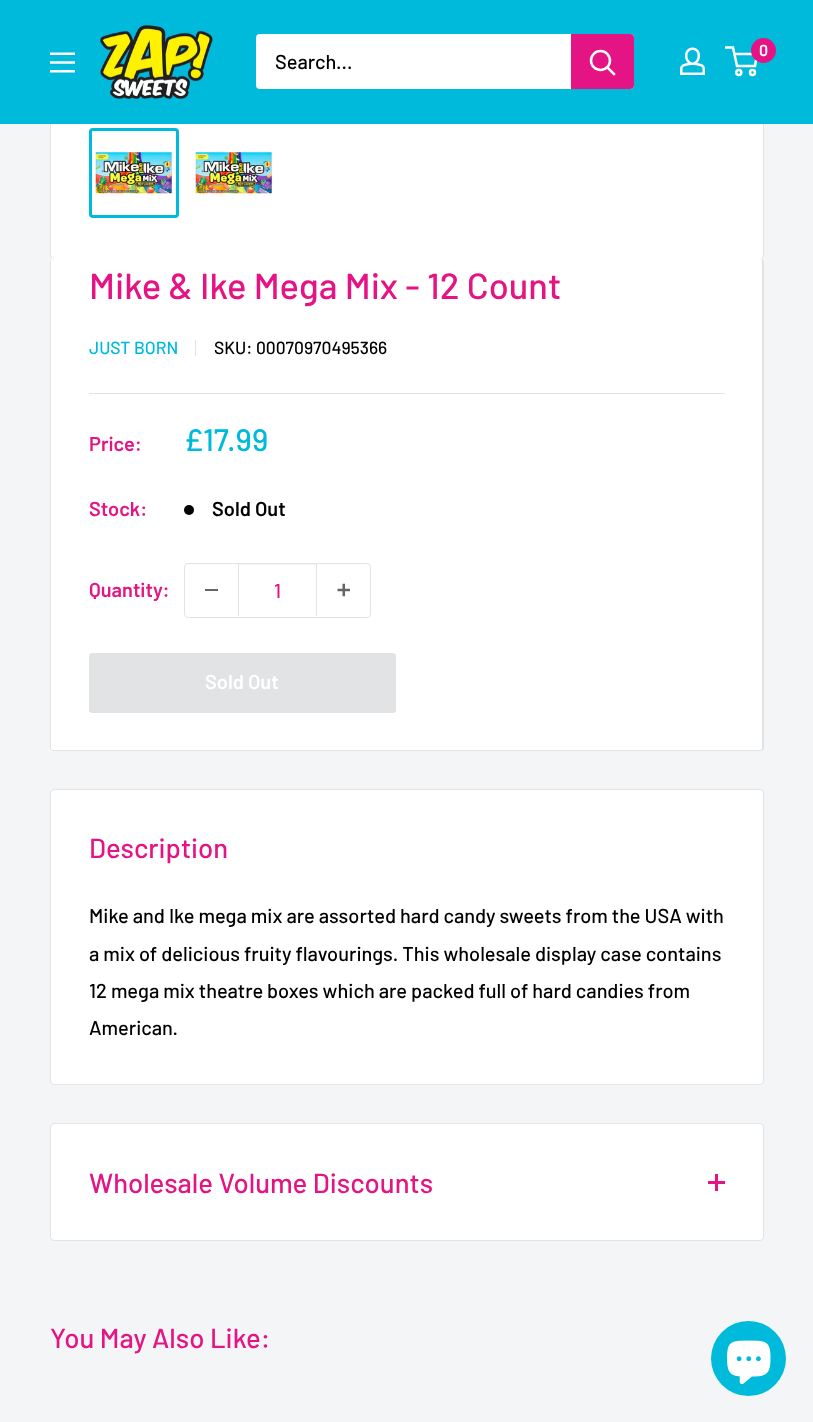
<!DOCTYPE html>
<meta charset="utf-8">
<style>body { margin: 0 } canvas { display: block }</style>
<canvas id="canvas" width="813" height="1422"></canvas>
<img id="img1" src="images/1.png" hidden>
<img id="img2" src="images/2.png" hidden>
<img id="img3" src="images/3.png" hidden>
<img id="img4" src="images/4.png" hidden>
<img id="img5" src="images/5.png" hidden>
<img id="img6" src="images/6.png" hidden>
<script>
window.onload = function () {
    const canvas = document.getElementById('canvas');
    const context = canvas.getContext('2d');
    context.miterLimit = 4;
    context.fontKerning = 'normal';

    context.fillStyle = 'rgb(243, 245, 246)';
    context.fillRect(0, 0, 813, 1422);
    context.fillStyle = 'rgb(255, 255, 255)';
    context.beginPath();
    context.roundRect(50.5, -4.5, 713, 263, 3.5);
    context.fill();
    context.strokeStyle = 'rgb(225, 227, 228)';
    context.stroke();
    context.fillStyle = 'rgb(0, 186, 219)';
    context.fillRect(0, 0, 813, 124);
    context.drawImage(document.getElementById('img1'), 100, 25, 113, 74);
    context.drawImage(document.getElementById('img2'), 680, 47, 25, 28);
    context.beginPath();
    context.arc(738.8, 72.5, 2.5, 0, 2 * Math.PI);
    context.strokeStyle = 'rgb(255, 255, 255)';
    context.lineWidth = 2.5;
    context.stroke();
    context.beginPath();
    context.arc(752.5, 72.5, 2.5, 0, 2 * Math.PI);
    context.stroke();
    context.beginPath();
    context.moveTo(734, 54);
    context.lineTo(757, 54);
    context.lineTo(755, 66);
    context.lineTo(737, 66);
    context.lineTo(733, 47.5);
    context.lineTo(725, 47.5);
    context.stroke();
    context.fillStyle = 'rgb(228, 20, 132)';
    context.beginPath();
    context.arc(763.5, 50.5, 12.5, 0, 2 * Math.PI);
    context.fill();
    context.drawImage(document.getElementById('img3'), 50, 52, 25, 21);
    context.fillStyle = 'rgb(255, 255, 255)';
    context.beginPath();
    context.roundRect(256, 34, 378, 55, 4);
    context.fill();
    context.fillStyle = 'rgb(228, 20, 132)';
    context.beginPath();
    context.roundRect(571, 34, 63, 55, [0, 4, 4, 0]);
    context.fill();
    context.beginPath();
    context.moveTo(614, 74);
    context.lineTo(607.5, 67.5);
    context.lineCap = 'square';
    context.stroke();
    context.beginPath();
    context.arc(600.5, 60.5, 9.5, 0, 2 * Math.PI);
    context.stroke();
    context.beginPath();
    context.roundRect(90.5, 129.5, 87, 87, 2.5);
    context.strokeStyle = 'rgb(0, 186, 219)';
    context.lineWidth = 3;
    context.stroke();
    context.drawImage(document.getElementById('img4'), 94, 151, 79, 46);
    context.drawImage(document.getElementById('img4'), 194, 151, 79, 46);
    context.fillStyle = 'rgb(255, 255, 255)';
    context.beginPath();
    context.moveTo(54, 258);
    context.bezierCurveTo(51, 258, 50, 260, 50, 262);
    context.bezierCurveTo(50, 260, 52, 259, 54, 259);
    context.lineTo(760, 259);
    context.bezierCurveTo(762, 259, 764, 260, 764, 262);
    context.lineTo(764, 747);
    context.lineTo(764, 262);
    context.bezierCurveTo(764, 260, 762, 258, 760, 258);
    context.closePath();
    context.fill();
    context.beginPath();
    context.roundRect(50, 259, 714, 492, 4);
    context.fill();
    context.fillStyle = 'rgb(225, 227, 228)';
    context.beginPath();
    context.moveTo(54, 259);
    context.lineTo(760, 259);
    context.bezierCurveTo(762, 259, 764, 260, 764, 262);
    context.lineTo(764, 748);
    context.bezierCurveTo(764, 750, 762, 751, 760, 751);
    context.lineTo(54, 751);
    context.bezierCurveTo(52, 751, 50, 750, 50, 748);
    context.lineTo(50, 262);
    context.bezierCurveTo(50, 260, 52, 259, 54, 259);
    context.closePath();
    context.moveTo(54, 259);
    context.lineTo(760, 259);
    context.bezierCurveTo(761, 259, 762, 260, 762, 262);
    context.lineTo(762, 748);
    context.bezierCurveTo(762, 749, 761, 750, 760, 750);
    context.lineTo(54, 750);
    context.bezierCurveTo(52, 750, 51, 749, 51, 748);
    context.lineTo(51, 262);
    context.bezierCurveTo(51, 260, 52, 259, 54, 259);
    context.closePath();
    context.fill('evenodd');
    context.fillRect(195, 340, 1, 16);
    context.fillRect(89, 393, 636, 1);
    context.fillStyle = 'rgb(0, 0, 0)';
    context.beginPath();
    context.arc(189, 510, 5, 0, 2 * Math.PI);
    context.fill();
    context.beginPath();
    context.roundRect(184.5, 563.5, 186, 54, 3.5);
    context.strokeStyle = 'rgb(225, 227, 228)';
    context.lineWidth = 1;
    context.stroke();
    context.fillStyle = 'rgb(102, 102, 102)';
    context.fillRect(205, 589, 13, 2);
    context.fillStyle = 'rgb(243, 244, 244)';
    context.fillRect(239, 564, 77, 1);
    context.fillStyle = 'rgb(225, 227, 228)';
    context.fillRect(316, 564, 1, 52);
    context.fillRect(238, 564, 1, 52);
    context.drawImage(document.getElementById('img5'), 337, 583, 13, 14);
    context.beginPath();
    context.roundRect(89.5, 653.5, 306, 59, 2);
    context.fill();
    context.stroke();
    context.fillStyle = 'rgb(255, 255, 255)';
    context.beginPath();
    context.roundRect(50.5, 789.5, 713, 295, 3.5);
    context.fill();
    context.stroke();
    context.beginPath();
    context.roundRect(50.5, 1123.5, 713, 117, 3.5);
    context.fill();
    context.stroke();
    context.fillStyle = 'rgb(228, 20, 132)';
    context.fillRect(715, 1174, 3, 17);
    context.fillRect(708, 1181, 17, 3);
    context.fillStyle = 'rgb(0, 186, 219)';
    context.beginPath();
    context.arc(748.5, 1358.5, 37.5, 0, 2 * Math.PI);
    context.fill();
    context.drawImage(document.getElementById('img6'), 727, 1340, 44, 45);
    context.font = '600 16px Barlow';
    context.fillStyle = 'rgb(255, 255, 255)';
    context.fillText('0', 759, 56);
    context.font = '500 20px Barlow';
    context.fillStyle = 'rgb(0, 0, 0)';
    context.fillText('Search...', 275, 69);
    context.font = '500 36.25px Barlow';
    context.fillStyle = 'rgb(228, 20, 132)';
    context.fillText('Mike & Ike Mega Mix - 12 Count', 89, 299);
    context.font = '500 17.5px Barlow';
    context.fillStyle = 'rgb(0, 186, 219)';
    context.fillText('JUST BORN', 89, 354);
    context.fillStyle = 'rgb(0, 0, 0)';
    context.fillText('SKU: 00070970495366', 214, 354);
    context.font = '600 20px Barlow';
    context.fillStyle = 'rgb(228, 20, 132)';
    context.fillText('Price:', 89, 451);
    context.font = '500 31px Barlow';
    context.fillStyle = 'rgb(0, 186, 219)';
    context.fillText('£17.99', 184, 451);
    context.font = '600 20px Barlow';
    context.fillStyle = 'rgb(228, 20, 132)';
    context.fillText('Stock:', 89, 516);
    context.fillStyle = 'rgb(0, 0, 0)';
    context.fillText('Sold Out', 212, 516);
    context.fillStyle = 'rgb(228, 20, 132)';
    context.fillText('Quantity:', 89, 597);
    context.font = '500 20px Barlow';
    context.fillText('1', 274, 598);
    context.font = '600 20px Barlow';
    context.fillStyle = 'rgb(255, 255, 255)';
    context.fillText('Sold Out', 205, 689);
    context.font = '500 27.5px Barlow';
    context.fillStyle = 'rgb(228, 20, 132)';
    context.fillText('Description', 89, 858);
    context.font = '500 20px Barlow';
    context.fillStyle = 'rgb(0, 0, 0)';
    context.fillText('Mike and Ike mega mix are assorted hard candy sweets from the USA with', 89, 923);
    context.fillText('a mix of delicious fruity flavourings. This wholesale display case contains', 89, 961);
    context.fillText('12 mega mix theatre boxes which are packed full of hard candies from', 89, 998);
    context.fillText('American.', 89, 1035);
    context.font = '500 27.5px Barlow';
    context.fillStyle = 'rgb(228, 20, 132)';
    context.fillText('Wholesale Volume Discounts', 89, 1193);
    context.fillText('You May Also Like:', 50, 1348);
};
</script>
